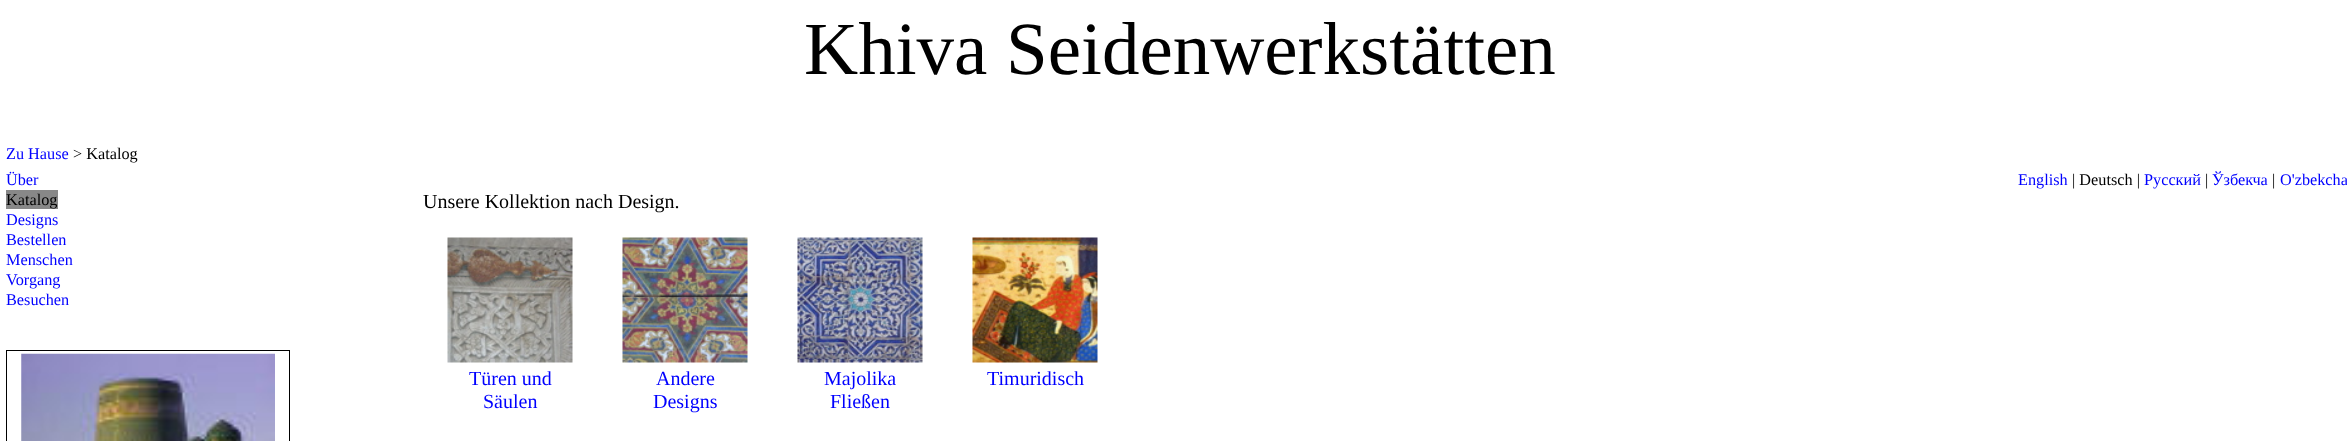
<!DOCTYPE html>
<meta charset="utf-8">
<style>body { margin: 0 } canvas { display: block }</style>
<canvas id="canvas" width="2347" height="441"></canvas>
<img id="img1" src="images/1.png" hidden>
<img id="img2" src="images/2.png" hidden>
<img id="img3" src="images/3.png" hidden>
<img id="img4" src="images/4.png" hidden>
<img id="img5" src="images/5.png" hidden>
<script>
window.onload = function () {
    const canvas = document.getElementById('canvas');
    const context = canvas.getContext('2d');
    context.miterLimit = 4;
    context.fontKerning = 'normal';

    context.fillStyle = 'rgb(255, 255, 255)';
    context.fillRect(0, 0, 2347, 441);
    context.fillStyle = 'rgb(136, 136, 136)';
    context.fillRect(6, 190, 52, 19);
    context.strokeStyle = 'rgb(0, 0, 0)';
    context.strokeRect(6.5, 350.5, 283, 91);
    context.drawImage(document.getElementById('img1'), 21, 353, 254, 88);
    context.drawImage(document.getElementById('img2'), 447, 237, 126, 126);
    context.drawImage(document.getElementById('img3'), 622, 237, 126, 126);
    context.drawImage(document.getElementById('img4'), 797, 237, 126, 126);
    context.drawImage(document.getElementById('img5'), 972, 237, 126, 126);
    context.font = '75px Liberation Serif';
    context.fillStyle = 'rgb(0, 0, 0)';
    context.fillText('Khiva Seidenwerkstätten', 804, 74);
    context.font = '16.25px Liberation Serif';
    context.fillStyle = 'rgb(0, 0, 255)';
    context.fillText('Zu Hause', 6, 159);
    context.fillStyle = 'rgb(0, 0, 0)';
    context.fillText('> Katalog', 73, 159);
    context.fillStyle = 'rgb(0, 0, 255)';
    context.fillText('Über', 6, 185);
    context.fillStyle = 'rgb(0, 0, 0)';
    context.fillText('Katalog', 6, 205);
    context.fillStyle = 'rgb(0, 0, 255)';
    context.fillText('Designs', 6, 225);
    context.fillText('Bestellen', 6, 245);
    context.fillText('Menschen', 6, 265);
    context.fillText('Vorgang', 6, 285);
    context.fillText('Besuchen', 6, 305);
    context.fillText('English', 2018, 185);
    context.fillStyle = 'rgb(0, 0, 0)';
    context.fillText('| Deutsch |', 2072, 185);
    context.fillStyle = 'rgb(0, 0, 255)';
    context.fillText('Русский', 2144, 185);
    context.fillStyle = 'rgb(0, 0, 0)';
    context.fillText('|', 2205, 185);
    context.fillStyle = 'rgb(0, 0, 255)';
    context.fillText('Ўзбекча', 2212, 185);
    context.fillStyle = 'rgb(0, 0, 0)';
    context.fillText('|', 2272, 185);
    context.fillStyle = 'rgb(0, 0, 255)';
    context.fillText('O\'zbekcha', 2280, 185);
    context.font = '20px Liberation Serif';
    context.fillStyle = 'rgb(0, 0, 0)';
    context.fillText('Unsere Kollektion nach Design.', 423, 208);
    context.fillStyle = 'rgb(0, 0, 255)';
    context.fillText('Türen und', 469, 385);
    context.fillText('Säulen', 483, 408);
    context.fillText('Andere', 656, 385);
    context.fillText('Designs', 653, 408);
    context.fillText('Majolika', 824, 385);
    context.fillText('Fließen', 830, 408);
    context.fillText('Timuridisch', 987, 385);
};
</script>
